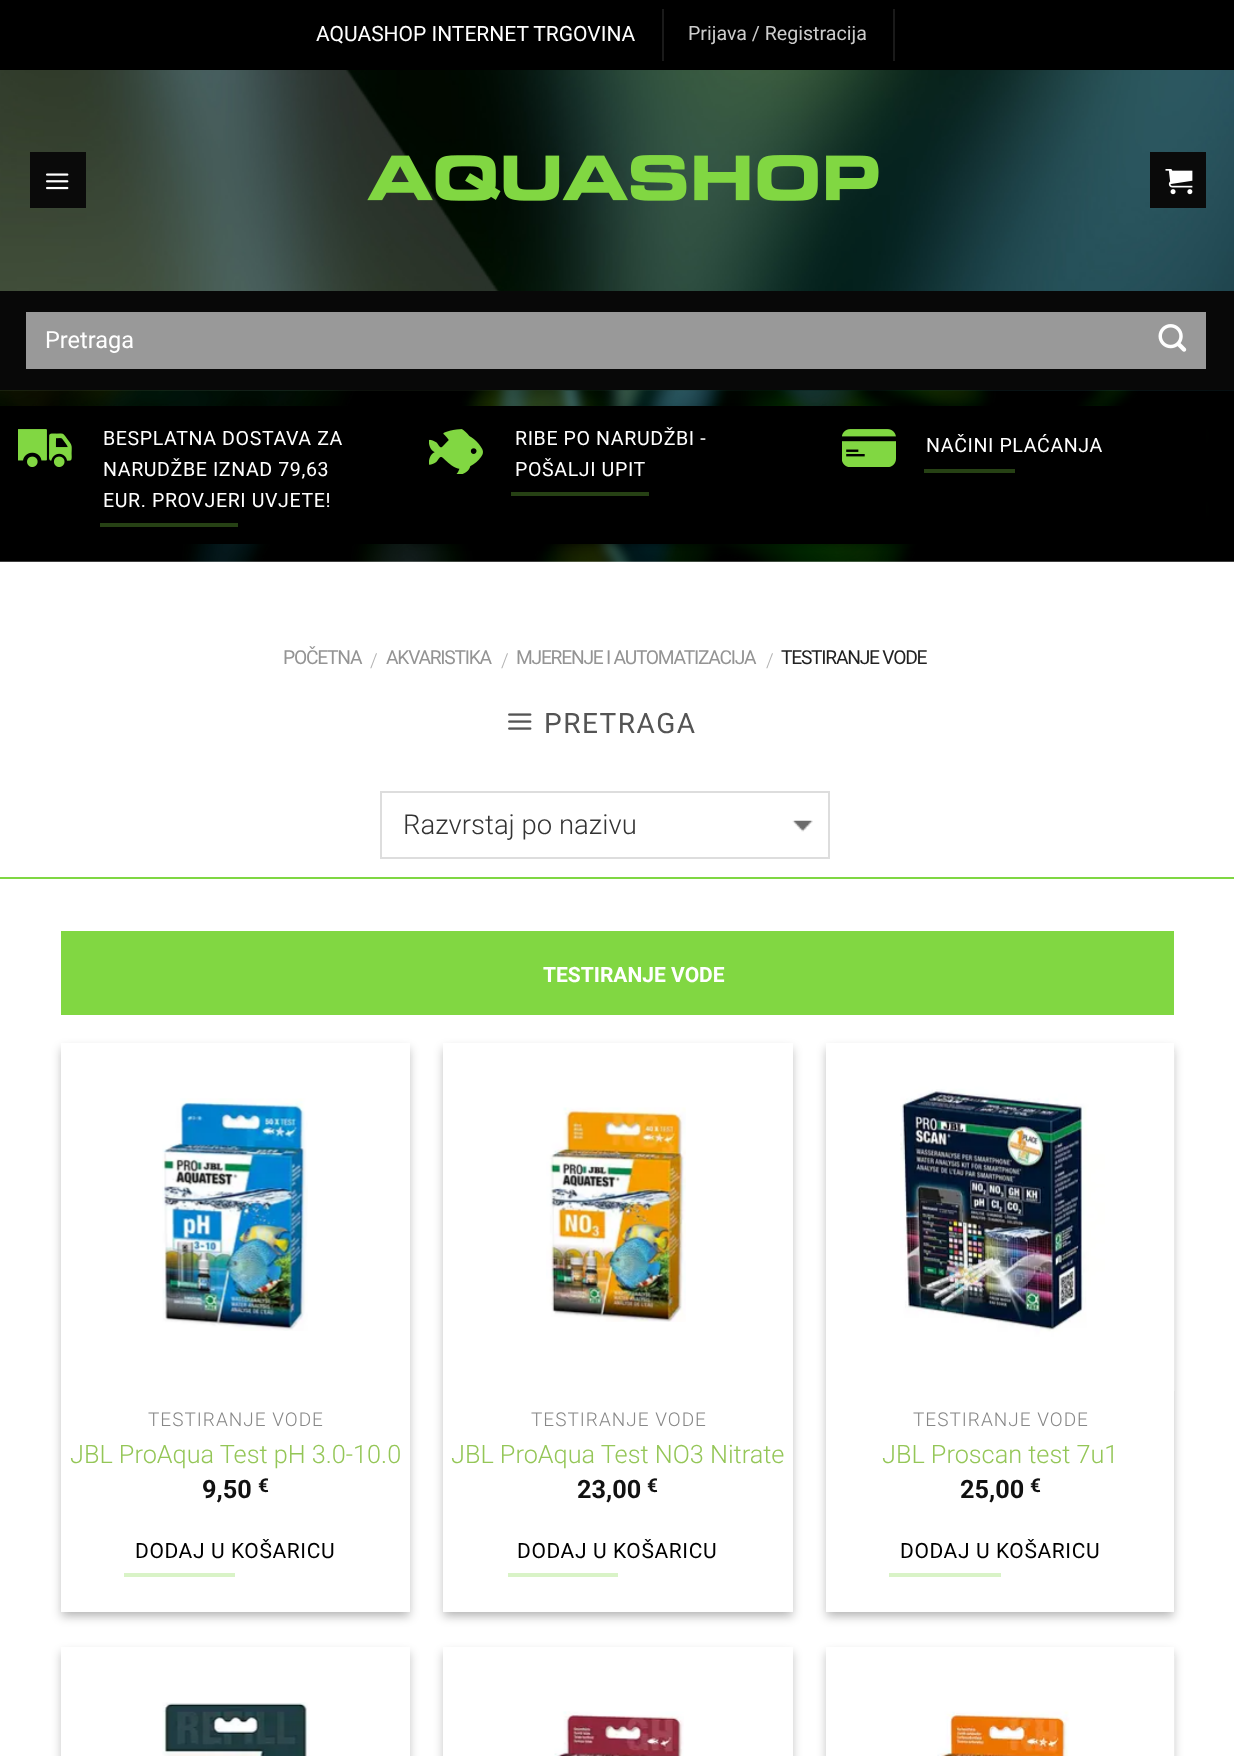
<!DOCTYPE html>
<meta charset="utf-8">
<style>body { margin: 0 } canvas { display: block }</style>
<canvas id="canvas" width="1234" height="1756"></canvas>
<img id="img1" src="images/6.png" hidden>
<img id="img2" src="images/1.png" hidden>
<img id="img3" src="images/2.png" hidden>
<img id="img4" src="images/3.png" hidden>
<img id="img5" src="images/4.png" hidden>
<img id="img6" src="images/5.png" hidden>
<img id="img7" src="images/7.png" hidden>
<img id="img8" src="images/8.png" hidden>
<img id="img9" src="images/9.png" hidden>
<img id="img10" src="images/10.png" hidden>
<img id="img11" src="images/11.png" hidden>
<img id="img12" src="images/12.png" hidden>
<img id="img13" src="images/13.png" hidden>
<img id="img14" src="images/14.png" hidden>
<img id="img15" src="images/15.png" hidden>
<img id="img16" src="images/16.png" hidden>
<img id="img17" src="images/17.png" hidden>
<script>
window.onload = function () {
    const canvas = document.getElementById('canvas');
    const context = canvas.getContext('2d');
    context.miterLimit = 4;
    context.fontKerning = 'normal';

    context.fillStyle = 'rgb(255, 255, 255)';
    context.fillRect(0, 0, 1234, 1756);
    context.fillStyle = 'rgb(0, 0, 0)';
    context.fillRect(0, 0, 1234, 70);
    context.fillStyle = 'rgb(26, 26, 26)';
    context.fillRect(662, 9, 2, 52);
    context.fillRect(893, 9, 2, 52);
    context.drawImage(document.getElementById('img1'), 0, 390, 1234, 172);
    context.drawImage(document.getElementById('img2'), 0, 70, 1234, 321);
    context.fillStyle = 'rgb(10, 10, 10)';
    context.fillRect(30, 152, 56, 56);
    context.drawImage(document.getElementById('img3'), 46, 173, 23, 17);
    context.drawImage(document.getElementById('img4'), 367, 155, 512, 46);
    context.fillRect(1150, 152, 56, 56);
    context.drawImage(document.getElementById('img5'), 1165, 169, 28, 26);
    context.fillStyle = 'rgb(8, 8, 8)';
    context.fillRect(0, 291, 1234, 99);
    context.fillStyle = 'rgb(153, 153, 153)';
    context.fillRect(26, 312, 1180, 57);
    context.drawImage(document.getElementById('img6'), 1158, 324, 29, 28);
    context.fillStyle = 'rgb(0, 0, 0)';
    context.fillRect(0, 406, 411, 138);
    context.drawImage(document.getElementById('img7'), 18, 429, 54, 38);
    context.fillStyle = 'rgb(38, 65, 20)';
    context.fillRect(100, 523, 138, 4);
    context.fillStyle = 'rgba(0, 0, 0, 0.24)';
    context.filter = 'blur(2px)';
    context.beginPath();
    context.rect(411, 408, 413, 138);
    context.fill();
    context.filter = 'none';
    context.fillStyle = 'rgb(0, 0, 0)';
    context.fillRect(411, 406, 413, 138);
    context.drawImage(document.getElementById('img8'), 429, 429, 54, 45);
    context.fillStyle = 'rgb(38, 65, 20)';
    context.fillRect(511, 492, 138, 4);
    context.fillStyle = 'rgba(0, 0, 0, 0.24)';
    context.filter = 'blur(2px)';
    context.beginPath();
    context.rect(824, 408, 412, 138);
    context.fill();
    context.filter = 'none';
    context.fillStyle = 'rgb(0, 0, 0)';
    context.fillRect(824, 406, 382, 138);
    context.drawImage(document.getElementById('img9'), 842, 429, 54, 38);
    context.fillStyle = 'rgb(38, 65, 20)';
    context.fillRect(924, 469, 91, 4);
    context.fillStyle = 'rgb(127, 215, 67)';
    context.fillRect(0, 877, 1234, 2);
    context.drawImage(document.getElementById('img10'), 508, 713, 24, 17);
    context.drawImage(document.getElementById('img11'), 792, 820, 21, 12);
    context.strokeStyle = 'rgb(221, 221, 221)';
    context.lineWidth = 2;
    context.strokeRect(381, 792, 448, 66);
    context.fillStyle = 'rgb(129, 215, 66)';
    context.fillRect(61, 931, 1113, 84);
    context.fillStyle = 'rgba(0, 0, 0, 0.23)';
    context.filter = 'blur(5px)';
    context.beginPath();
    context.rect(61, 1048, 349, 569);
    context.fill();
    context.filter = 'none';
    context.fillStyle = 'rgba(0, 0, 0, 0.16)';
    context.filter = 'blur(5px)';
    context.beginPath();
    context.rect(68, 1055, 335, 555);
    context.fill();
    context.filter = 'none';
    context.fillStyle = 'rgb(255, 255, 255)';
    context.fillRect(61, 1043, 349, 569);
    context.drawImage(document.getElementById('img12'), 162, 1098, 146, 233);
    context.fillStyle = 'rgb(217, 243, 199)';
    context.fillRect(124, 1573, 111, 4);
    context.fillStyle = 'rgba(0, 0, 0, 0.23)';
    context.filter = 'blur(5px)';
    context.beginPath();
    context.rect(443, 1048, 350, 569);
    context.fill();
    context.filter = 'none';
    context.fillStyle = 'rgba(0, 0, 0, 0.16)';
    context.filter = 'blur(5px)';
    context.beginPath();
    context.rect(450, 1055, 336, 555);
    context.fill();
    context.filter = 'none';
    context.fillStyle = 'rgb(255, 255, 255)';
    context.fillRect(443, 1043, 350, 569);
    context.drawImage(document.getElementById('img13'), 546, 1107, 140, 215);
    context.fillStyle = 'rgb(217, 243, 199)';
    context.fillRect(508, 1573, 110, 4);
    context.fillStyle = 'rgba(0, 0, 0, 0.23)';
    context.filter = 'blur(5px)';
    context.beginPath();
    context.rect(826, 1048, 348, 569);
    context.fill();
    context.filter = 'none';
    context.fillStyle = 'rgba(0, 0, 0, 0.16)';
    context.filter = 'blur(5px)';
    context.beginPath();
    context.rect(833, 1055, 334, 555);
    context.fill();
    context.filter = 'none';
    context.fillStyle = 'rgb(255, 255, 255)';
    context.fillRect(826, 1043, 348, 569);
    context.drawImage(document.getElementById('img14'), 900, 1052, 275, 339);
    context.fillStyle = 'rgb(217, 243, 199)';
    context.fillRect(889, 1573, 112, 4);
    context.fillStyle = 'rgba(0, 0, 0, 0.23)';
    context.filter = 'blur(5px)';
    context.beginPath();
    context.rect(61, 1652, 349, 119);
    context.fill();
    context.filter = 'none';
    context.fillStyle = 'rgb(255, 255, 255)';
    context.fillRect(61, 1647, 349, 109);
    context.drawImage(document.getElementById('img15'), 162, 1702, 148, 54);
    context.fillStyle = 'rgba(0, 0, 0, 0.23)';
    context.filter = 'blur(5px)';
    context.beginPath();
    context.rect(443, 1652, 350, 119);
    context.fill();
    context.filter = 'none';
    context.fillStyle = 'rgb(255, 255, 255)';
    context.fillRect(443, 1647, 350, 109);
    context.drawImage(document.getElementById('img16'), 554, 1711, 130, 45);
    context.save();
    context.beginPath();
    context.moveTo(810, 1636);
    context.lineTo(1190, 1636);
    context.lineTo(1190, 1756);
    context.lineTo(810, 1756);
    context.closePath();
    context.moveTo(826, 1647);
    context.lineTo(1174, 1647);
    context.lineTo(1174, 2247);
    context.lineTo(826, 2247);
    context.closePath();
    context.clip('evenodd');
    context.fillStyle = 'rgba(0, 0, 0, 0.23)';
    context.filter = 'blur(5px)';
    context.beginPath();
    context.rect(826, 1652, 348, 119);
    context.fill();
    context.filter = 'none';
    context.restore();
    context.drawImage(document.getElementById('img17'), 937, 1656, 238, 100);
    context.font = '21px Roboto';
    context.fillText('AQUASHOP INTERNET TRGOVINA', 316, 41);
    context.font = '19.6px Roboto';
    context.fillStyle = 'rgb(204, 204, 204)';
    context.fillText('Prijava / Registracija', 688, 40);
    context.font = '23.5px Roboto';
    context.fillStyle = 'rgb(255, 255, 255)';
    context.fillText('Pretraga', 45, 348);
    context.letterSpacing = '0.6px';
    context.font = '19.6px Roboto';
    context.fillText('BESPLATNA DOSTAVA ZA', 103, 445);
    context.fillText('NARUDŽBE IZNAD 79,63', 103, 476);
    context.fillText('EUR. PROVJERI UVJETE!', 103, 507);
    context.fillText('RIBE PO NARUDŽBI -', 515, 445);
    context.fillText('POŠALJI UPIT', 515, 476);
    context.fillText('NAČINI PLAĆANJA', 926, 452);
    context.letterSpacing = '-1.25px';
    context.font = '19.25px Roboto';
    context.fillStyle = 'rgb(148, 148, 148)';
    context.fillText('POČETNA', 283, 664);
    context.font = '300 19.25px Roboto';
    context.fillStyle = 'rgb(178, 178, 178)';
    context.fillText('/', 370, 667);
    context.font = '19.25px Roboto';
    context.fillStyle = 'rgb(148, 148, 148)';
    context.fillText('AKVARISTIKA', 386, 664);
    context.font = '300 19.25px Roboto';
    context.fillStyle = 'rgb(178, 178, 178)';
    context.fillText('/', 501, 667);
    context.font = '19.25px Roboto';
    context.fillStyle = 'rgb(148, 148, 148)';
    context.fillText('MJERENJE I AUTOMATIZACIJA', 516, 664);
    context.font = '300 19.25px Roboto';
    context.fillStyle = 'rgb(178, 178, 178)';
    context.fillText('/', 766, 667);
    context.font = '19.25px Roboto';
    context.fillStyle = 'rgb(34, 34, 34)';
    context.fillText('TESTIRANJE VODE', 781, 664);
    context.letterSpacing = '1.5px';
    context.font = '28px Roboto';
    context.fillStyle = 'rgb(84, 84, 84)';
    context.fillText('PRETRAGA', 544, 733);
    context.letterSpacing = '0px';
    context.font = '300 27.5px Roboto';
    context.fillStyle = 'rgb(51, 51, 51)';
    context.fillText('Razvrstaj po nazivu', 403, 834);
    context.font = 'bold 21px Roboto';
    context.fillStyle = 'rgb(255, 255, 255)';
    context.fillText('TESTIRANJE VODE', 543, 982);
    context.letterSpacing = '1px';
    context.font = '300 19px Roboto';
    context.fillStyle = 'rgb(135, 135, 135)';
    context.fillText('TESTIRANJE VODE', 148, 1426);
    context.letterSpacing = '0px';
    context.font = '300 25.25px Roboto';
    context.fillStyle = 'rgb(148, 198, 87)';
    context.fillText('JBL ProAqua Test pH 3.0-10.0', 70, 1463);
    context.font = 'bold 25.25px Roboto';
    context.fillStyle = 'rgb(17, 17, 17)';
    context.fillText('9,50', 202, 1498);
    context.font = 'bold 19px Roboto';
    context.fillText('€', 258, 1492);
    context.letterSpacing = '0.6px';
    context.font = '21px Roboto';
    context.fillStyle = 'rgb(0, 0, 0)';
    context.fillText('DODAJ U KOŠARICU', 135, 1558);
    context.letterSpacing = '1px';
    context.font = '300 19px Roboto';
    context.fillStyle = 'rgb(135, 135, 135)';
    context.fillText('TESTIRANJE VODE', 531, 1426);
    context.letterSpacing = '0px';
    context.font = '300 25.25px Roboto';
    context.fillStyle = 'rgb(148, 198, 87)';
    context.fillText('JBL ProAqua Test NO3 Nitrate', 451, 1463);
    context.font = 'bold 25.25px Roboto';
    context.fillStyle = 'rgb(17, 17, 17)';
    context.fillText('23,00', 577, 1498);
    context.font = 'bold 19px Roboto';
    context.fillText('€', 647, 1492);
    context.letterSpacing = '0.6px';
    context.font = '21px Roboto';
    context.fillStyle = 'rgb(0, 0, 0)';
    context.fillText('DODAJ U KOŠARICU', 517, 1558);
    context.letterSpacing = '1px';
    context.font = '300 19px Roboto';
    context.fillStyle = 'rgb(135, 135, 135)';
    context.fillText('TESTIRANJE VODE', 913, 1426);
    context.letterSpacing = '0px';
    context.font = '300 25.25px Roboto';
    context.fillStyle = 'rgb(148, 198, 87)';
    context.fillText('JBL Proscan test 7u1', 882, 1463);
    context.font = 'bold 25.25px Roboto';
    context.fillStyle = 'rgb(17, 17, 17)';
    context.fillText('25,00', 960, 1498);
    context.font = 'bold 19px Roboto';
    context.fillText('€', 1030, 1492);
    context.letterSpacing = '0.6px';
    context.font = '21px Roboto';
    context.fillStyle = 'rgb(0, 0, 0)';
    context.fillText('DODAJ U KOŠARICU', 900, 1558);
};
</script>
